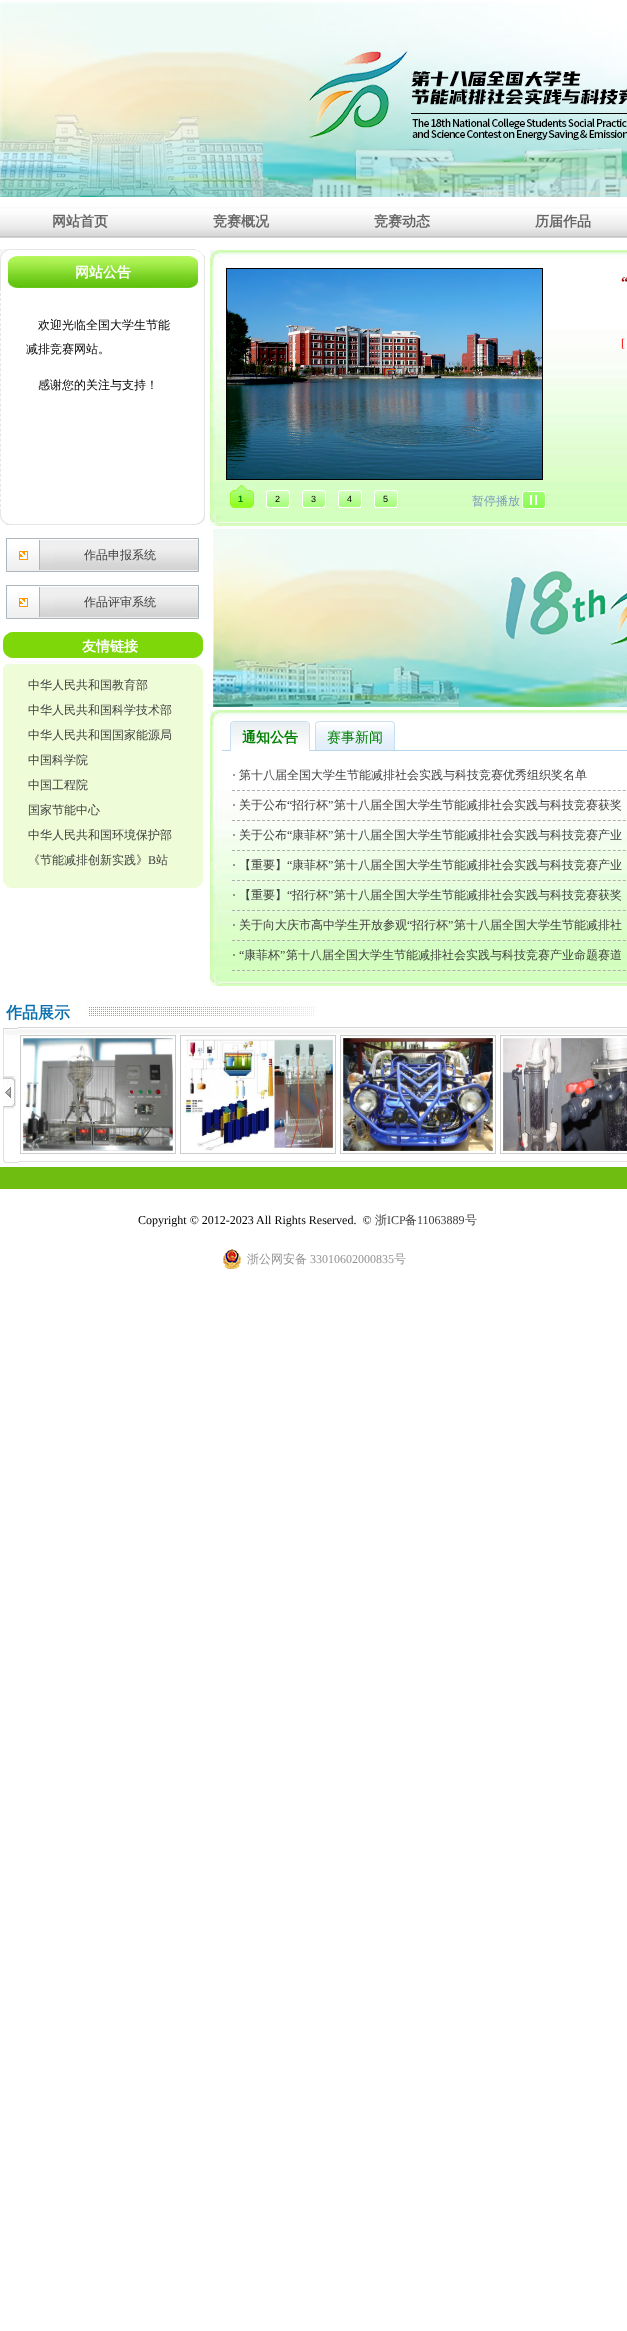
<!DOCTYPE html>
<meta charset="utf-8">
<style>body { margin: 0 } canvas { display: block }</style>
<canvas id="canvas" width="627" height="2331"></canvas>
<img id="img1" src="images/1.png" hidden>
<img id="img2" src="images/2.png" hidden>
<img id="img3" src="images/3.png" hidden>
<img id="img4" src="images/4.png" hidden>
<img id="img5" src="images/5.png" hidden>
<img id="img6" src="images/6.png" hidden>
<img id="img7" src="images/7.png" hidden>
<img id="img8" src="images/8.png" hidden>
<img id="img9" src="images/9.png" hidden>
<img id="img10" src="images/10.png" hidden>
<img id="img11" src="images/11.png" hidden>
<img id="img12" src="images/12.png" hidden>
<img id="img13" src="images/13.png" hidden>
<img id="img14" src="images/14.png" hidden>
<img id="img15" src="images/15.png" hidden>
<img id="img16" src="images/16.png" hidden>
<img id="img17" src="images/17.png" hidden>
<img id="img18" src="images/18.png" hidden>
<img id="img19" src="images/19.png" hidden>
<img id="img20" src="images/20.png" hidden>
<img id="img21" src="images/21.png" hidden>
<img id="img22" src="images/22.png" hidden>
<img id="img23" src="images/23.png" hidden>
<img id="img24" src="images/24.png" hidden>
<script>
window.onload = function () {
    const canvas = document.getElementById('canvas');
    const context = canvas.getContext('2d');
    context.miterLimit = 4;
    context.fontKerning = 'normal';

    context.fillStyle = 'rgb(255, 255, 255)';
    context.fillRect(0, 0, 627, 2331);
    context.drawImage(document.getElementById('img1'), 0, 1, 627, 196);
    context.drawImage(document.getElementById('img2'), 0, 207, 627, 31);
    context.drawImage(document.getElementById('img3'), 0, 249, 205, 39);
    context.fillStyle = 'rgb(230, 230, 230)';
    context.fillRect(204, 288, 1, 224);
    context.beginPath();
    context.moveTo(0.5, 288);
    context.lineTo(0.5, 512);
    context.strokeStyle = 'rgb(230, 230, 230)';
    context.setLineDash([3, 2.02]);
    context.stroke();
    context.drawImage(document.getElementById('img4'), 0, 512, 205, 13);
    context.drawImage(document.getElementById('img5'), 6, 538, 193, 34);
    context.drawImage(document.getElementById('img5'), 6, 585, 193, 34);
    context.drawImage(document.getElementById('img6'), 3, 632, 200, 41);
    context.fillStyle = 'rgb(238, 253, 216)';
    context.fillRect(3, 673, 200, 200);
    context.drawImage(document.getElementById('img7'), 3, 873, 200, 15);
    context.drawImage(document.getElementById('img8'), 210, 250, 12, 276);
    context.drawImage(document.getElementById('img9'), 222, 250, 405, 276);
    context.strokeStyle = 'rgb(0, 0, 0)';
    context.setLineDash([]);
    context.strokeRect(226.5, 268.5, 316, 211);
    context.drawImage(document.getElementById('img10'), 227, 269, 315, 210);
    context.drawImage(document.getElementById('img11'), 230, 484, 24, 24);
    context.drawImage(document.getElementById('img12'), 266, 490, 24, 18);
    context.drawImage(document.getElementById('img12'), 302, 490, 24, 18);
    context.drawImage(document.getElementById('img12'), 338, 490, 24, 18);
    context.drawImage(document.getElementById('img12'), 374, 490, 24, 18);
    context.drawImage(document.getElementById('img13'), 522, 491, 24, 18);
    context.drawImage(document.getElementById('img14'), 213, 529, 414, 178);
    context.drawImage(document.getElementById('img8'), 210, 710, 12, 276);
    context.drawImage(document.getElementById('img9'), 222, 710, 405, 276);
    context.fillStyle = 'rgb(184, 214, 238)';
    context.fillRect(222, 750, 405, 1);
    context.drawImage(document.getElementById('img15'), 230, 721, 80, 30);
    context.drawImage(document.getElementById('img16'), 315, 721, 80, 29);
    context.beginPath();
    context.moveTo(232, 790.5);
    context.lineTo(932, 790.5);
    context.strokeStyle = 'rgb(174, 174, 174)';
    context.setLineDash([3, 2.01]);
    context.stroke();
    context.beginPath();
    context.moveTo(232, 820.5);
    context.lineTo(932, 820.5);
    context.stroke();
    context.beginPath();
    context.moveTo(232, 850.5);
    context.lineTo(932, 850.5);
    context.stroke();
    context.beginPath();
    context.moveTo(232, 880.5);
    context.lineTo(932, 880.5);
    context.stroke();
    context.beginPath();
    context.moveTo(232, 910.5);
    context.lineTo(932, 910.5);
    context.stroke();
    context.beginPath();
    context.moveTo(232, 940.5);
    context.lineTo(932, 940.5);
    context.stroke();
    context.beginPath();
    context.moveTo(232, 970.5);
    context.lineTo(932, 970.5);
    context.stroke();
    context.drawImage(document.getElementById('img17'), 85, 1000, 231, 16);
    context.drawImage(document.getElementById('img18'), 3, 1028, 15, 135);
    context.drawImage(document.getElementById('img19'), 18, 1027, 609, 135);
    context.strokeStyle = 'rgb(204, 204, 204)';
    context.setLineDash([]);
    context.strokeRect(20.5, 1035.5, 155, 118);
    context.drawImage(document.getElementById('img20'), 23, 1038, 150, 113);
    context.strokeRect(180.5, 1035.5, 155, 118);
    context.drawImage(document.getElementById('img21'), 183, 1038, 150, 113);
    context.strokeRect(340.5, 1035.5, 155, 118);
    context.drawImage(document.getElementById('img22'), 343, 1038, 150, 113);
    context.strokeRect(500.5, 1035.5, 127, 118);
    context.drawImage(document.getElementById('img23'), 503, 1038, 124, 113);
    context.fillStyle = 'rgb(110, 189, 16)';
    context.fillRect(0, 1167, 627, 22);
    context.drawImage(document.getElementById('img24'), 223, 1249, 18, 20);
    context.font = 'bold 14px WenQuanYi Zen Hei';
    context.fillStyle = 'rgb(102, 102, 102)';
    context.fillText('网站首页', 52, 226);
    context.fillText('竞赛概况', 213, 226);
    context.fillText('竞赛动态', 374, 226);
    context.fillText('历届作品', 535, 226);
    context.fillStyle = 'rgb(255, 255, 255)';
    context.fillText('网站公告', 75, 277);
    context.font = '500 12px WenQuanYi Zen Hei';
    context.fillStyle = 'rgb(0, 0, 0)';
    context.fillText('欢迎光临全国大学生节能', 38, 329);
    context.fillText('减排竞赛网站。', 26, 353);
    context.fillText('感谢您的关注与支持！', 38, 389);
    context.fillStyle = 'rgb(64, 64, 64)';
    context.fillText('作品申报系统', 84, 559);
    context.fillText('作品评审系统', 84, 606);
    context.font = 'bold 14px WenQuanYi Zen Hei';
    context.fillStyle = 'rgb(255, 255, 255)';
    context.fillText('友情链接', 82, 651);
    context.font = '500 12px WenQuanYi Zen Hei';
    context.fillStyle = 'rgb(64, 64, 64)';
    context.fillText('中华人民共和国教育部', 28, 689);
    context.fillText('中华人民共和国科学技术部', 28, 714);
    context.fillText('中华人民共和国国家能源局', 28, 739);
    context.fillText('中国科学院', 28, 764);
    context.fillText('中国工程院', 28, 789);
    context.fillText('国家节能中心', 28, 814);
    context.fillText('中华人民共和国环境保护部', 28, 839);
    context.fillText('《节能减排创新实践》', 28, 864);
    context.font = '12px Liberation Serif';
    context.fillText('B', 148, 864);
    context.font = '500 12px WenQuanYi Zen Hei';
    context.fillText('站', 156, 864);
    context.font = 'bold 15px Liberation Serif';
    context.fillStyle = 'rgb(168, 0, 0)';
    context.fillText('“', 621, 287);
    context.font = '12px Liberation Serif';
    context.fillStyle = 'rgb(255, 0, 0)';
    context.fillText('[', 621, 347);
    context.font = 'bold 9px Liberation Sans';
    context.fillStyle = 'rgb(0, 128, 0)';
    context.fillText('1', 238, 502);
    context.font = '9px Liberation Sans';
    context.fillStyle = 'rgb(0, 0, 0)';
    context.fillText('2', 275, 502);
    context.fillText('3', 311, 502);
    context.fillText('4', 347, 502);
    context.fillText('5', 383, 502);
    context.font = '500 12px WenQuanYi Zen Hei';
    context.fillStyle = 'rgb(125, 152, 191)';
    context.fillText('暂停播放', 472, 505);
    context.font = 'bold 14px WenQuanYi Zen Hei';
    context.fillStyle = 'rgb(0, 128, 0)';
    context.fillText('通知公告', 242, 742);
    context.font = '500 14px WenQuanYi Zen Hei';
    context.fillText('赛事新闻', 327, 742);
    context.font = '12px Liberation Serif';
    context.fillStyle = 'rgb(0, 0, 0)';
    context.fillText('·', 232, 779);
    context.font = '500 12px WenQuanYi Zen Hei';
    context.fillStyle = 'rgb(64, 64, 64)';
    context.fillText('第十八届全国大学生节能减排社会实践与科技竞赛优秀组织奖名单', 239, 779);
    context.font = '12px Liberation Serif';
    context.fillStyle = 'rgb(0, 0, 0)';
    context.fillText('·', 232, 809);
    context.font = '500 12px WenQuanYi Zen Hei';
    context.fillStyle = 'rgb(64, 64, 64)';
    context.fillText('关于公布', 239, 809);
    context.font = '12px Liberation Serif';
    context.fillText('“', 287, 809);
    context.font = '500 12px WenQuanYi Zen Hei';
    context.fillText('招行杯', 292, 809);
    context.font = '12px Liberation Serif';
    context.fillText('”', 328, 809);
    context.font = '500 12px WenQuanYi Zen Hei';
    context.fillText('第十八届全国大学生节能减排社会实践与科技竞赛获奖', 334, 809);
    context.font = '12px Liberation Serif';
    context.fillStyle = 'rgb(0, 0, 0)';
    context.fillText('·', 232, 839);
    context.font = '500 12px WenQuanYi Zen Hei';
    context.fillStyle = 'rgb(64, 64, 64)';
    context.fillText('关于公布', 239, 839);
    context.font = '12px Liberation Serif';
    context.fillText('“', 287, 839);
    context.font = '500 12px WenQuanYi Zen Hei';
    context.fillText('康菲杯', 292, 839);
    context.font = '12px Liberation Serif';
    context.fillText('”', 328, 839);
    context.font = '500 12px WenQuanYi Zen Hei';
    context.fillText('第十八届全国大学生节能减排社会实践与科技竞赛产业', 334, 839);
    context.font = '12px Liberation Serif';
    context.fillStyle = 'rgb(0, 0, 0)';
    context.fillText('·', 232, 869);
    context.font = '500 12px WenQuanYi Zen Hei';
    context.fillStyle = 'rgb(64, 64, 64)';
    context.fillText('【重要】', 239, 869);
    context.font = '12px Liberation Serif';
    context.fillText('“', 287, 869);
    context.font = '500 12px WenQuanYi Zen Hei';
    context.fillText('康菲杯', 292, 869);
    context.font = '12px Liberation Serif';
    context.fillText('”', 328, 869);
    context.font = '500 12px WenQuanYi Zen Hei';
    context.fillText('第十八届全国大学生节能减排社会实践与科技竞赛产业', 334, 869);
    context.font = '12px Liberation Serif';
    context.fillStyle = 'rgb(0, 0, 0)';
    context.fillText('·', 232, 899);
    context.font = '500 12px WenQuanYi Zen Hei';
    context.fillStyle = 'rgb(64, 64, 64)';
    context.fillText('【重要】', 239, 899);
    context.font = '12px Liberation Serif';
    context.fillText('“', 287, 899);
    context.font = '500 12px WenQuanYi Zen Hei';
    context.fillText('招行杯', 292, 899);
    context.font = '12px Liberation Serif';
    context.fillText('”', 328, 899);
    context.font = '500 12px WenQuanYi Zen Hei';
    context.fillText('第十八届全国大学生节能减排社会实践与科技竞赛获奖', 334, 899);
    context.font = '12px Liberation Serif';
    context.fillStyle = 'rgb(0, 0, 0)';
    context.fillText('·', 232, 929);
    context.font = '500 12px WenQuanYi Zen Hei';
    context.fillStyle = 'rgb(64, 64, 64)';
    context.fillText('关于向大庆市高中学生开放参观', 239, 929);
    context.font = '12px Liberation Serif';
    context.fillText('“', 407, 929);
    context.font = '500 12px WenQuanYi Zen Hei';
    context.fillText('招行杯', 412, 929);
    context.font = '12px Liberation Serif';
    context.fillText('”', 448, 929);
    context.font = '500 12px WenQuanYi Zen Hei';
    context.fillText('第十八届全国大学生节能减排社', 454, 929);
    context.font = '12px Liberation Serif';
    context.fillStyle = 'rgb(0, 0, 0)';
    context.fillText('·', 232, 959);
    context.fillStyle = 'rgb(64, 64, 64)';
    context.fillText('“', 239, 959);
    context.font = '500 12px WenQuanYi Zen Hei';
    context.fillText('康菲杯', 244, 959);
    context.font = '12px Liberation Serif';
    context.fillText('”', 280, 959);
    context.font = '500 12px WenQuanYi Zen Hei';
    context.fillText('第十八届全国大学生节能减排社会实践与科技竞赛产业命题赛道', 286, 959);
    context.font = 'bold 16px WenQuanYi Zen Hei';
    context.fillStyle = 'rgb(9, 112, 176)';
    context.fillText('作品展示', 6, 1018);
    context.font = '12px Liberation Serif';
    context.fillStyle = 'rgb(0, 0, 0)';
    context.fillText('Copyright © 2012-2023 All Rights Reserved.  ©', 138, 1224);
    context.font = '500 12px WenQuanYi Zen Hei';
    context.fillStyle = 'rgb(64, 64, 64)';
    context.fillText('浙', 375, 1224);
    context.font = '12px Liberation Serif';
    context.fillText('ICP', 387, 1224);
    context.font = '500 12px WenQuanYi Zen Hei';
    context.fillText('备', 405, 1224);
    context.font = '12px Liberation Serif';
    context.fillText('11063889', 417, 1224);
    context.font = '500 12px WenQuanYi Zen Hei';
    context.fillText('号', 465, 1224);
    context.fillStyle = 'rgb(147, 147, 147)';
    context.fillText('浙公网安备', 247, 1263);
    context.font = '12px Liberation Serif';
    context.fillText('33010602000835', 310, 1263);
    context.font = '500 12px WenQuanYi Zen Hei';
    context.fillText('号', 394, 1263);
};
</script>
